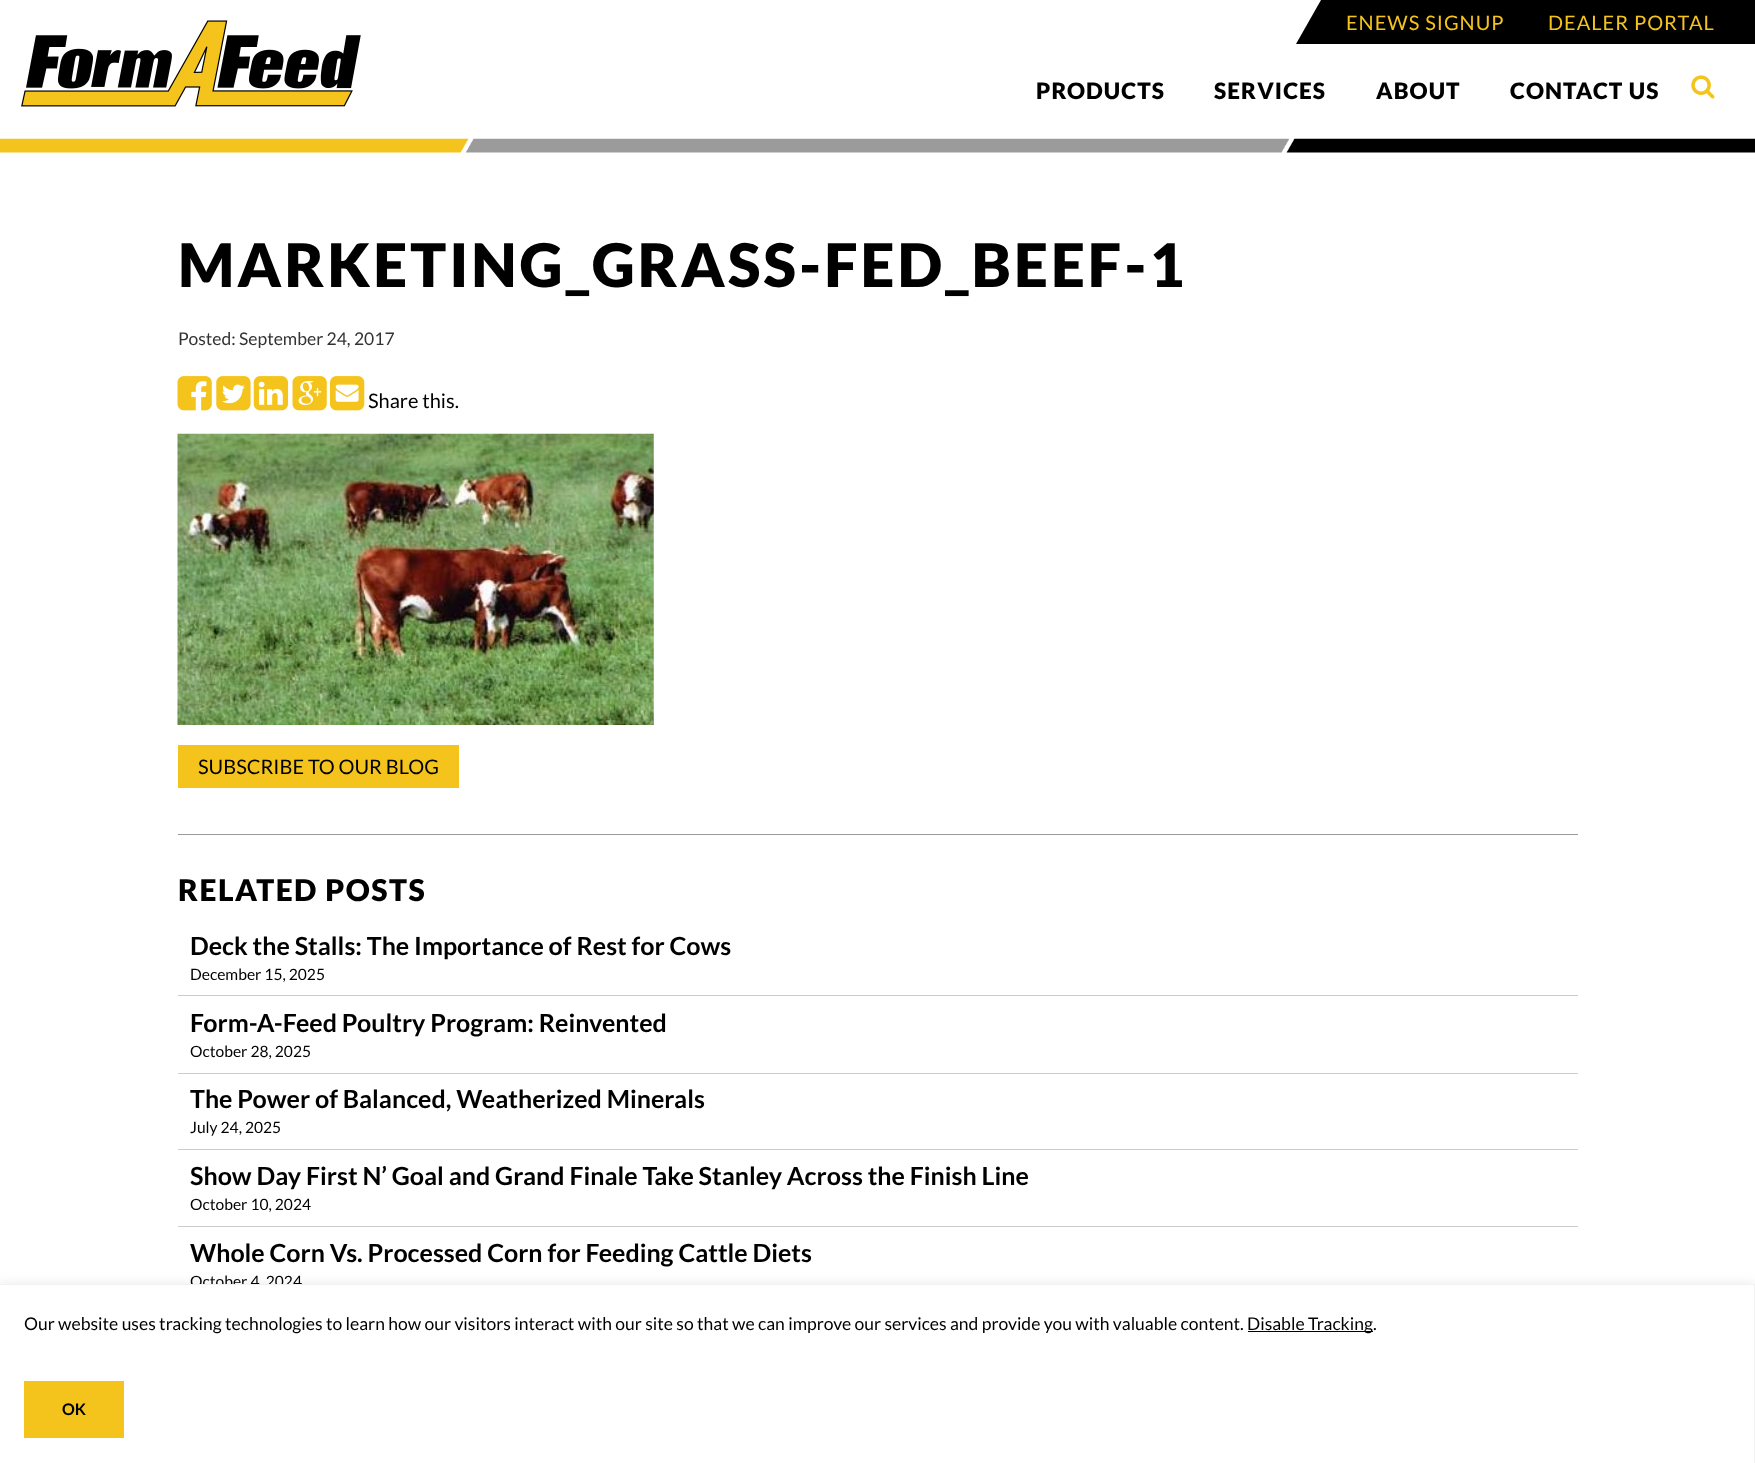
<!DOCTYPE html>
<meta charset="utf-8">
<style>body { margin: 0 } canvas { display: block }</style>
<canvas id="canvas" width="1755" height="1463"></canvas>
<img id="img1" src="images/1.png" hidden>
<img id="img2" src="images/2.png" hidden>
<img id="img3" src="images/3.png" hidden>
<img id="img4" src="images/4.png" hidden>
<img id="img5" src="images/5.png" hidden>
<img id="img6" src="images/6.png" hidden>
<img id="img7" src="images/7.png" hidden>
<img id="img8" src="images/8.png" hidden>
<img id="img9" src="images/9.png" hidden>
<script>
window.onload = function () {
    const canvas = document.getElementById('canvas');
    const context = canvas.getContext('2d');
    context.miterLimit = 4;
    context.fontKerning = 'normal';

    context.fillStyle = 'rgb(255, 255, 255)';
    context.fillRect(0, 0, 1755, 1463);
    context.drawImage(document.getElementById('img1'), 21, 20, 340, 87);
    context.fillStyle = 'rgb(0, 0, 0)';
    context.beginPath();
    context.moveTo(1321, 0);
    context.lineTo(1296, 44);
    context.lineTo(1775, 44);
    context.lineTo(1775, 0);
    context.closePath();
    context.fill();
    context.drawImage(document.getElementById('img2'), 1691, 75, 24, 24);
    context.drawImage(document.getElementById('img3'), 0, 138, 1755, 15);
    context.drawImage(document.getElementById('img4'), 177, 376, 35, 35);
    context.drawImage(document.getElementById('img5'), 216, 376, 35, 35);
    context.drawImage(document.getElementById('img6'), 253, 376, 36, 35);
    context.drawImage(document.getElementById('img7'), 292, 376, 35, 35);
    context.drawImage(document.getElementById('img8'), 330, 376, 35, 35);
    context.drawImage(document.getElementById('img9'), 177, 433, 477, 292);
    context.fillStyle = 'rgb(244, 196, 29)';
    context.fillRect(178, 745, 281, 43);
    context.fillStyle = 'rgb(153, 153, 153)';
    context.fillRect(178, 834, 1400, 1);
    context.fillStyle = 'rgb(204, 204, 204)';
    context.fillRect(178, 995, 1400, 1);
    context.fillRect(178, 1073, 1400, 1);
    context.fillRect(178, 1149, 1400, 1);
    context.fillRect(178, 1226, 1400, 1);
    context.fillStyle = 'rgba(74, 74, 74, 0.1)';
    context.filter = 'blur(6px)';
    context.beginPath();
    context.rect(-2, 1283, 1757, 180);
    context.fill();
    context.filter = 'none';
    context.letterSpacing = '1px';
    context.font = '20px Lato';
    context.fillStyle = 'rgb(244, 196, 29)';
    context.fillText('ENEWS SIGNUP', 1346, 30);
    context.fillText('DEALER PORTAL', 1548, 30);
    context.letterSpacing = '1.1px';
    context.font = '900 22.5px Lato';
    context.fillStyle = 'rgb(0, 0, 0)';
    context.fillText('PRODUCTS', 1036, 99);
    context.fillText('SERVICES', 1214, 99);
    context.fillText('ABOUT', 1376, 99);
    context.fillText('CONTACT US', 1510, 99);
    context.letterSpacing = '3px';
    context.font = '900 60px Lato';
    context.fillText('MARKETING_GRASS-FED_BEEF-1', 178, 287);
    context.letterSpacing = '0px';
    context.font = '17.5px Lato';
    context.fillStyle = 'rgb(51, 51, 51)';
    context.fillText('Posted: September 24, 2017', 178, 345);
    context.font = '20px Lato';
    context.fillStyle = 'rgb(0, 0, 0)';
    context.fillText('Share this.', 368, 408);
    context.fillText('SUBSCRIBE TO OUR BLOG', 198, 774);
    context.letterSpacing = '1.5px';
    context.font = '900 30px Lato';
    context.fillText('RELATED POSTS', 178, 901);
    context.letterSpacing = '0px';
    context.font = 'bold 25px Lato';
    context.fillText('Deck the Stalls: The Importance of Rest for Cows', 190, 955);
    context.font = '15.6px Lato';
    context.fillText('December 15, 2025', 190, 980);
    context.font = 'bold 25px Lato';
    context.fillText('Form-A-Feed Poultry Program: Reinvented', 190, 1032);
    context.font = '15.6px Lato';
    context.fillText('October 28, 2025', 190, 1057);
    context.font = 'bold 25px Lato';
    context.fillText('The Power of Balanced, Weatherized Minerals', 190, 1108);
    context.font = '15.6px Lato';
    context.fillText('July 24, 2025', 190, 1133);
    context.font = 'bold 25px Lato';
    context.fillText('Show Day First N’ Goal and Grand Finale Take Stanley Across the Finish Line', 190, 1185);
    context.font = '15.6px Lato';
    context.fillText('October 10, 2024', 190, 1210);
    context.font = 'bold 25px Lato';
    context.fillText('Whole Corn Vs. Processed Corn for Feeding Cattle Diets', 190, 1262);
    context.font = '15.6px Lato';
    context.fillText('October 4, 2024', 190, 1287);
    context.fillStyle = 'rgb(255, 255, 255)';
    context.beginPath();
    context.rect(-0.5, 1284.5, 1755, 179);
    context.fill();
    context.strokeStyle = 'rgb(242, 242, 242)';
    context.stroke();
    context.font = '17.5px Lato';
    context.fillStyle = 'rgb(0, 0, 0)';
    context.fillText('Our website uses tracking technologies to learn how our visitors interact with our site so that we can improve our services and provide you with valuable content.', 24, 1330);
    context.fillRect(1248, 1331, 125, 1);
    context.fillText('Disable Tracking.', 1247, 1330);
    context.fillStyle = 'rgb(244, 196, 29)';
    context.fillRect(24, 1381, 100, 57);
    context.font = 'bold 16px Lato';
    context.fillStyle = 'rgb(0, 0, 0)';
    context.fillText('OK', 62, 1415);
};
</script>
